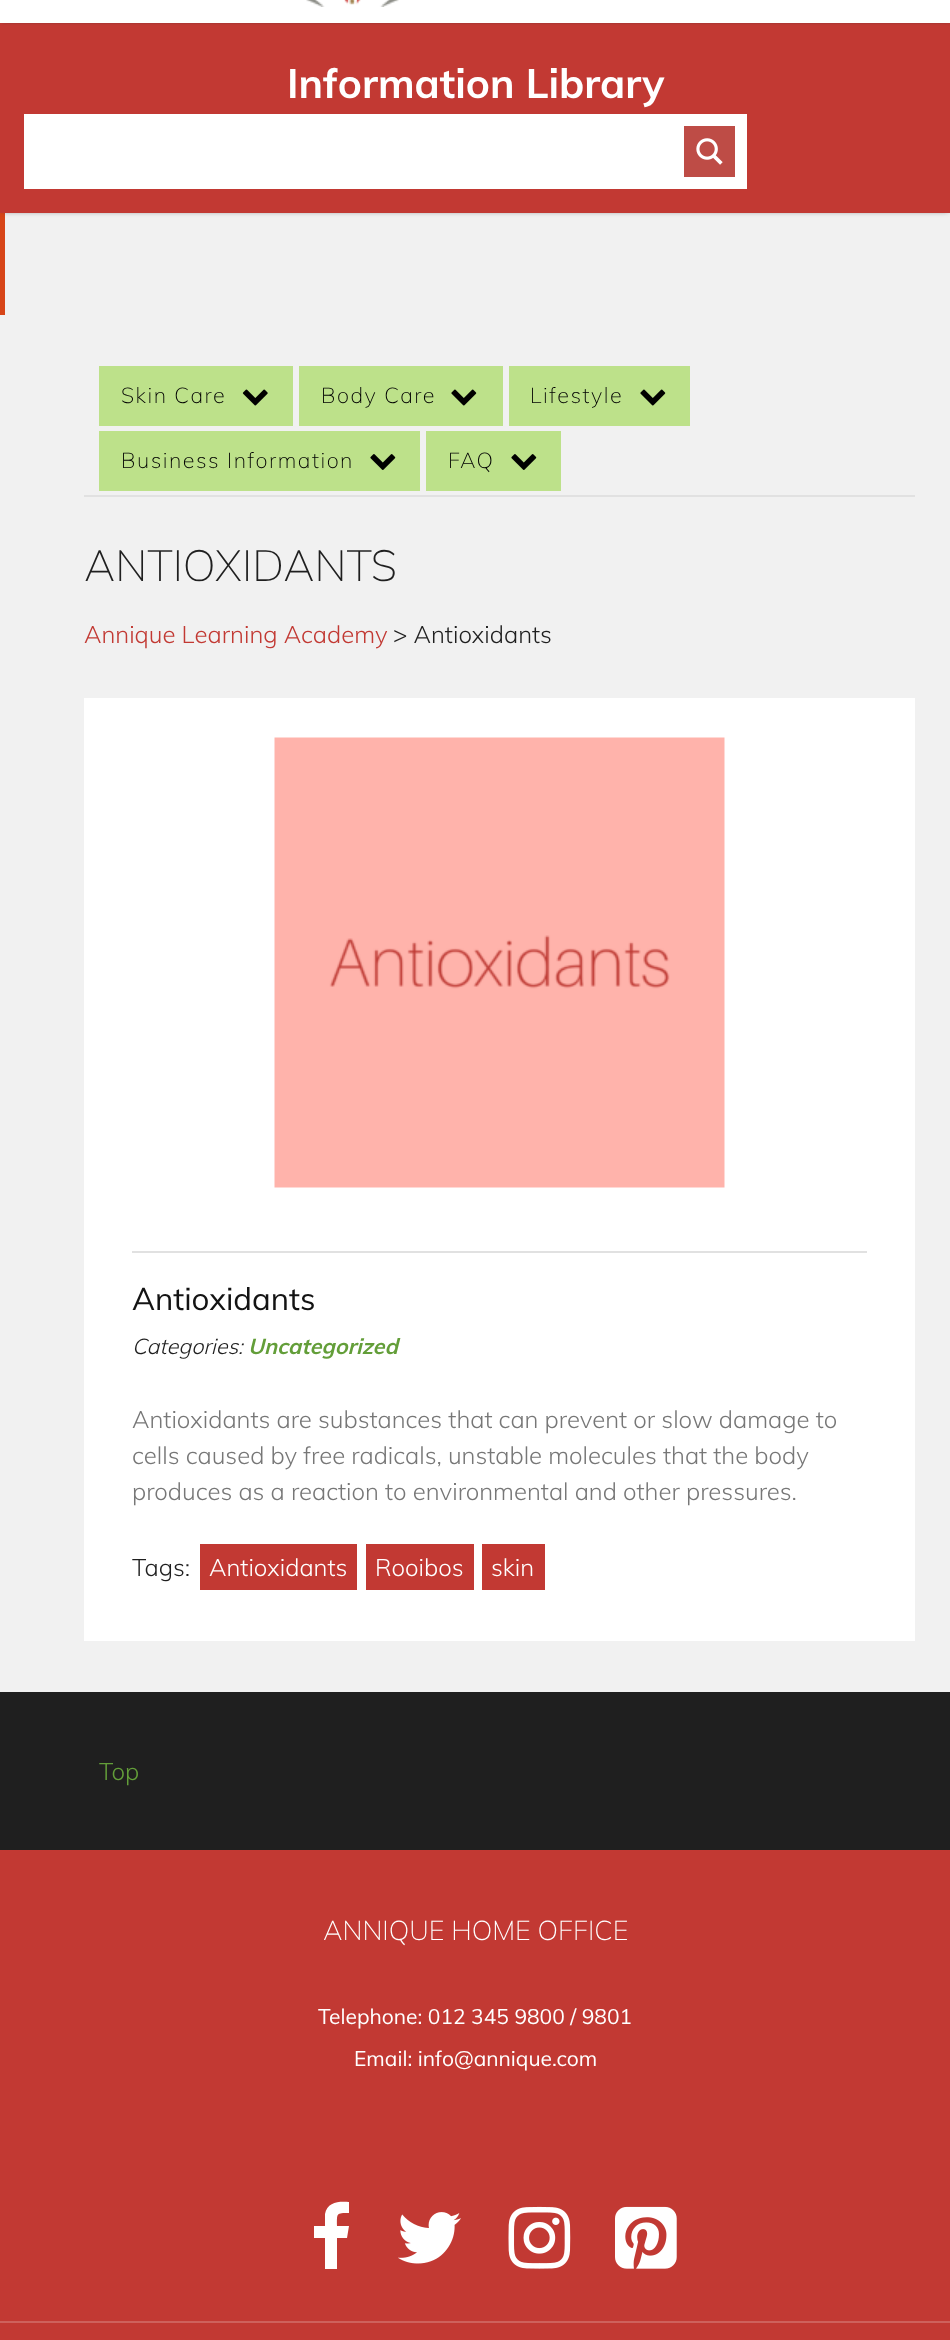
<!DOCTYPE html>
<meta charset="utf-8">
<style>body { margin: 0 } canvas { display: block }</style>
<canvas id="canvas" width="950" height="2340"></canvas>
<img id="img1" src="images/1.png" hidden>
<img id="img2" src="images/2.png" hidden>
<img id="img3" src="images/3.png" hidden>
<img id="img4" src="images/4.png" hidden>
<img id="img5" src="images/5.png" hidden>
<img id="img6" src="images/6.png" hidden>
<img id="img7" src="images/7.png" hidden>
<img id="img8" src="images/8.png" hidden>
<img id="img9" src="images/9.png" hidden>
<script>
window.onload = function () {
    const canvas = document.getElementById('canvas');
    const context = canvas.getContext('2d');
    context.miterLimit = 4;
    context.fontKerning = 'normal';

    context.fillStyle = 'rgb(241, 241, 241)';
    context.fillRect(0, 0, 950, 2340);
    context.fillStyle = 'rgb(215, 69, 24)';
    context.fillRect(0, 213, 5, 102);
    context.fillStyle = 'rgb(51, 51, 51)';
    context.filter = 'blur(3px)';
    context.beginPath();
    context.rect(3, 26, 945, 184);
    context.fill();
    context.filter = 'none';
    context.fillStyle = 'rgb(194, 57, 51)';
    context.fillRect(0, 23, 950, 190);
    context.fillStyle = 'rgb(51, 51, 51)';
    context.filter = 'blur(2px)';
    context.beginPath();
    context.rect(2, -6, 948, 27);
    context.fill();
    context.filter = 'none';
    context.fillStyle = 'rgb(255, 255, 255)';
    context.fillRect(0, 0, 950, 23);
    context.drawImage(document.getElementById('img1'), 306, 0, 93, 7);
    context.fillRect(24, 114, 723, 75);
    context.fillStyle = 'rgb(190, 76, 70)';
    context.fillRect(684, 126, 51, 51);
    context.drawImage(document.getElementById('img2'), 696, 138, 27, 27);
    context.fillStyle = 'rgb(189, 225, 138)';
    context.fillRect(99, 366, 194, 60);
    context.drawImage(document.getElementById('img3'), 242, 389, 26, 17);
    context.fillRect(299, 366, 204, 60);
    context.drawImage(document.getElementById('img4'), 451, 389, 26, 17);
    context.fillRect(509, 366, 181, 60);
    context.drawImage(document.getElementById('img4'), 640, 389, 26, 17);
    context.fillRect(99, 431, 321, 60);
    context.drawImage(document.getElementById('img5'), 370, 454, 26, 16);
    context.fillRect(426, 431, 135, 60);
    context.drawImage(document.getElementById('img5'), 511, 454, 26, 16);
    context.fillStyle = 'rgb(225, 225, 225)';
    context.fillRect(84, 495, 831, 2);
    context.fillStyle = 'rgb(255, 255, 255)';
    context.fillRect(84, 698, 831, 943);
    context.drawImage(document.getElementById('img6'), 274, 737, 451, 451);
    context.fillStyle = 'rgb(225, 225, 225)';
    context.fillRect(132, 1251, 735, 2);
    context.fillStyle = 'rgb(194, 57, 51)';
    context.fillRect(200, 1544, 157, 46);
    context.fillRect(366, 1544, 108, 46);
    context.fillRect(482, 1544, 63, 46);
    context.fillStyle = 'rgb(31, 31, 31)';
    context.fillRect(0, 1692, 950, 158);
    context.fillStyle = 'rgb(194, 57, 51)';
    context.fillRect(0, 1850, 950, 471);
    context.fillStyle = 'rgb(255, 255, 255)';
    context.beginPath();
    context.moveTo(349, 2202);
    context.lineTo(349, 2213);
    context.bezierCurveTo(336, 2213, 337, 2213, 337, 2226);
    context.lineTo(349, 2226);
    context.lineTo(347, 2238);
    context.lineTo(337, 2238);
    context.lineTo(337, 2269);
    context.lineTo(325, 2269);
    context.lineTo(325, 2238);
    context.lineTo(314, 2238);
    context.lineTo(314, 2226);
    context.lineTo(325, 2226);
    context.lineTo(325, 2214);
    context.bezierCurveTo(327, 2202, 339, 2201, 349, 2202);
    context.closePath();
    context.fill();
    context.drawImage(document.getElementById('img7'), 398, 2212, 63, 52);
    context.drawImage(document.getElementById('img8'), 508, 2206, 63, 63);
    context.drawImage(document.getElementById('img9'), 615, 2206, 62, 63);
    context.fillStyle = 'rgb(194, 57, 51)';
    context.fillRect(0, 2323, 950, 17);
    context.fillStyle = 'rgb(206, 97, 92)';
    context.fillRect(0, 2321, 950, 2);
    context.font = 'bold 40.75px Muli';
    context.fillStyle = 'rgb(255, 255, 255)';
    context.fillText('Information Library', 287, 98);
    context.letterSpacing = '1.5px';
    context.font = '200 21.6px Muli';
    context.fillStyle = 'rgb(0, 0, 0)';
    context.fillText('Skin Care', 121, 403);
    context.fillText('Body Care', 321, 403);
    context.fillText('Lifestyle', 530, 403);
    context.fillText('Business Information', 121, 468);
    context.fillText('FAQ', 448, 468);
    context.letterSpacing = '0px';
    context.font = '200 43.25px Muli';
    context.fillStyle = 'rgb(31, 31, 31)';
    context.fillText('ANTIOXIDANTS', 84, 581);
    context.font = '300 24px Muli';
    context.fillStyle = 'rgb(194, 57, 51)';
    context.fillText('Annique Learning Academy', 84, 643);
    context.fillStyle = 'rgb(31, 31, 31)';
    context.fillText('> Antioxidants', 393, 643);
    context.font = '31.25px Muli';
    context.fillStyle = 'rgb(19, 19, 19)';
    context.fillText('Antioxidants', 132, 1310);
    context.font = 'italic 300 21.6px Muli';
    context.fillStyle = 'rgb(31, 31, 31)';
    context.fillText('Categories:', 132, 1354);
    context.font = 'italic bold 21.6px Muli';
    context.fillStyle = 'rgb(99, 158, 57)';
    context.fillText('Uncategorized', 248, 1354);
    context.font = '300 24px Muli';
    context.fillStyle = 'rgb(119, 119, 119)';
    context.fillText('Antioxidants are substances that can prevent or slow damage to', 132, 1428);
    context.fillText('cells caused by free radicals, unstable molecules that the body', 132, 1464);
    context.fillText('produces as a reaction to environmental and other pressures.', 132, 1500);
    context.fillStyle = 'rgb(31, 31, 31)';
    context.fillText('Tags:', 132, 1576);
    context.fillStyle = 'rgb(255, 255, 255)';
    context.fillText('Antioxidants', 209, 1576);
    context.fillText('Rooibos', 375, 1576);
    context.fillText('skin', 491, 1576);
    context.fillStyle = 'rgb(99, 158, 57)';
    context.fillText('Top', 99, 1780);
    context.font = '200 27px Muli';
    context.fillStyle = 'rgb(255, 255, 255)';
    context.fillText('ANNIQUE HOME OFFICE', 323, 1940);
    context.font = '21px Muli';
    context.fillText('Telephone: 012 345 9800 / 9801', 318, 2024);
    context.fillText('Email: info@annique.com', 354, 2066);
};
</script>
